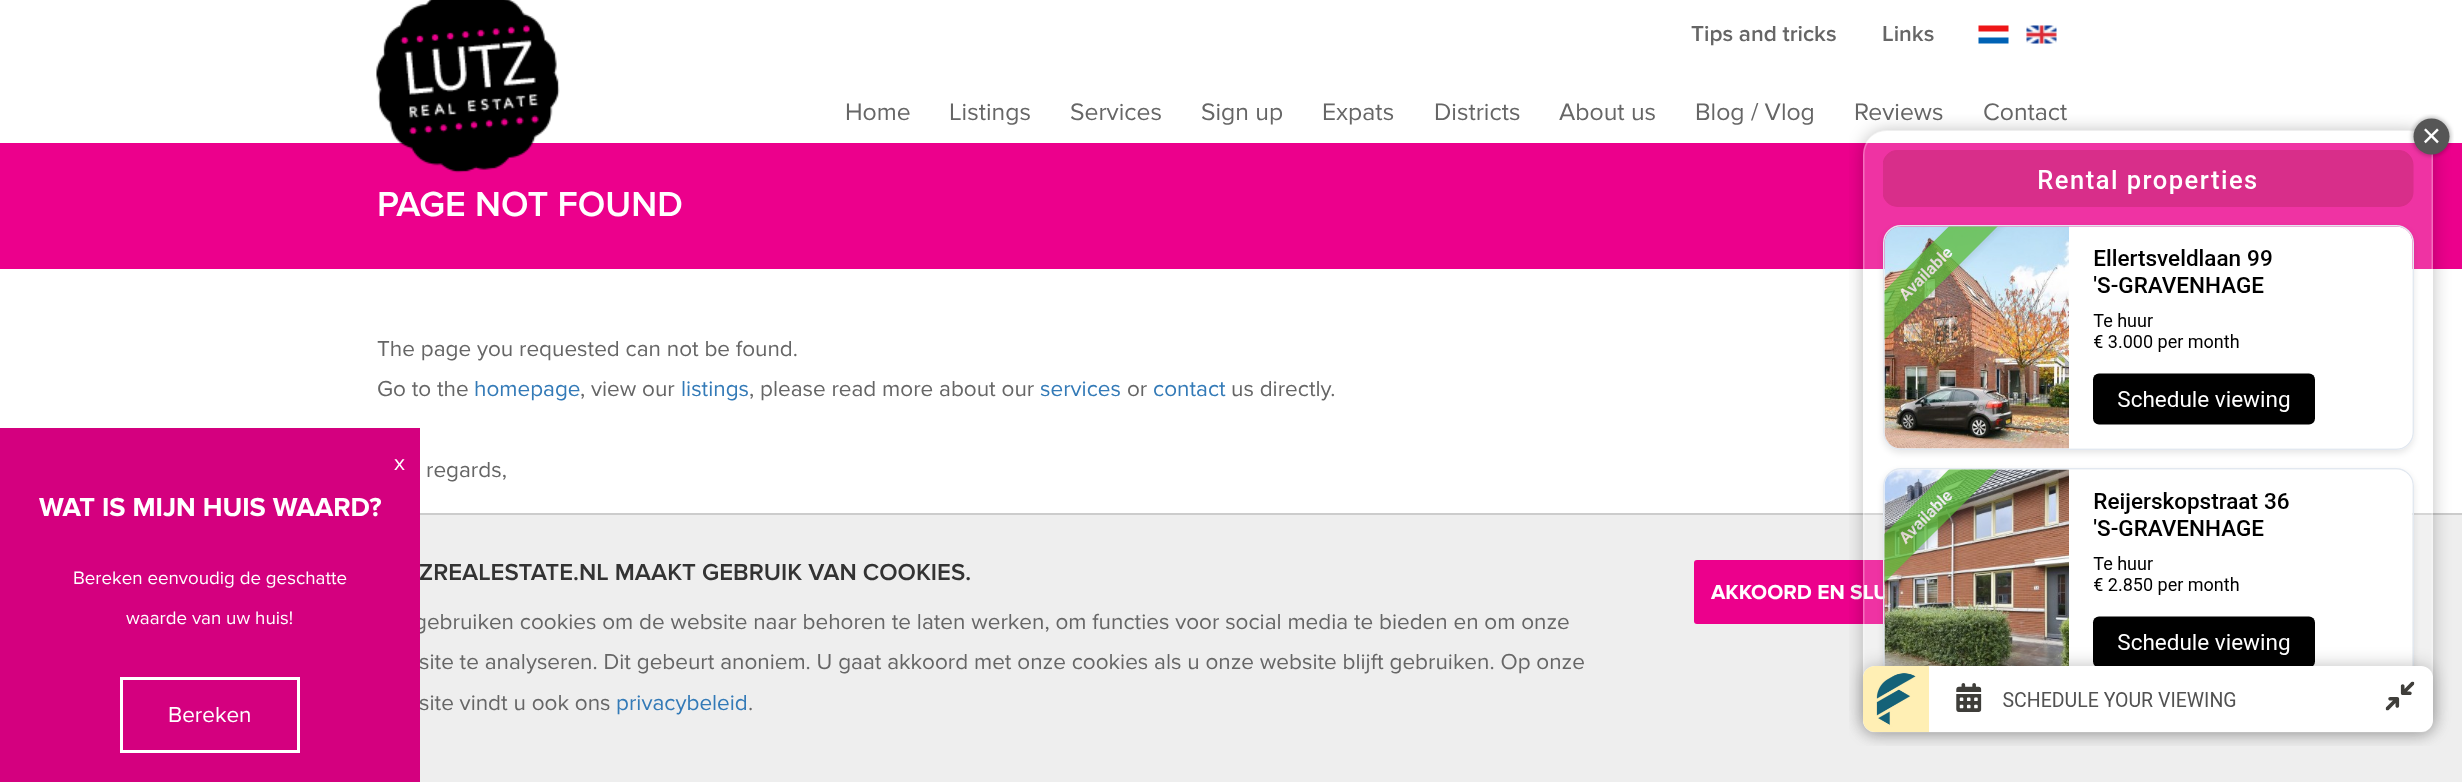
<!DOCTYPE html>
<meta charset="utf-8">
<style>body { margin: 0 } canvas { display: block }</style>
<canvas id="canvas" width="2462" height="782"></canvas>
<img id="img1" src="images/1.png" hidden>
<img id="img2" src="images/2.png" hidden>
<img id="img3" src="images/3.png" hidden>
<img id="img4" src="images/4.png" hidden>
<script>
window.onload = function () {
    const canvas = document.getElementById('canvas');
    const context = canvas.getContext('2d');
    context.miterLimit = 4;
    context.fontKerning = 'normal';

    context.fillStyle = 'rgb(255, 255, 255)';
    context.fillRect(0, 0, 2462, 782);
    context.fillStyle = 'rgb(236, 0, 140)';
    context.fillRect(0, 143, 2462, 126);
    context.drawImage(document.getElementById('img1'), 376, 0, 184, 173);
    context.drawImage(document.getElementById('img2'), 1978, 25, 31, 19);
    context.drawImage(document.getElementById('img3'), 2026, 25, 31, 19);
    context.fillStyle = 'rgb(238, 238, 238)';
    context.fillRect(420, 515, 2042, 267);
    context.fillStyle = 'rgb(204, 204, 204)';
    context.fillRect(420, 513, 2042, 2);
    context.fillStyle = 'rgb(236, 0, 140)';
    context.beginPath();
    context.roundRect(1694, 560, 258, 64, 3);
    context.fill();
    context.font = '600 22.5px Proxima Nova';
    context.fillStyle = 'rgb(102, 102, 102)';
    context.fillText('Tips and tricks', 1691, 41);
    context.fillText('Links', 1882, 41);
    context.font = '24.75px Proxima Nova';
    context.fillText('Home', 845, 120);
    context.fillText('Listings', 949, 120);
    context.fillText('Services', 1070, 120);
    context.fillText('Sign up', 1201, 120);
    context.fillText('Expats', 1322, 120);
    context.fillText('Districts', 1434, 120);
    context.fillText('About us', 1559, 120);
    context.fillText('Blog / Vlog', 1695, 120);
    context.fillText('Reviews', 1854, 120);
    context.fillText('Contact', 1983, 120);
    context.font = '600 36px Proxima Nova';
    context.fillStyle = 'rgb(255, 255, 255)';
    context.fillText('PAGE NOT FOUND', 377, 216);
    context.font = '22.5px Proxima Nova';
    context.fillStyle = 'rgb(102, 102, 102)';
    context.fillText('The page you requested can not be found.', 377, 356);
    context.fillText('Go to the', 377, 396);
    context.fillStyle = 'rgb(51, 122, 183)';
    context.fillText('homepage', 474, 396);
    context.fillStyle = 'rgb(102, 102, 102)';
    context.fillText(', view our', 580, 396);
    context.fillStyle = 'rgb(51, 122, 183)';
    context.fillText('listings', 681, 396);
    context.fillStyle = 'rgb(102, 102, 102)';
    context.fillText(', please read more about our', 749, 396);
    context.fillStyle = 'rgb(51, 122, 183)';
    context.fillText('services', 1040, 396);
    context.fillStyle = 'rgb(102, 102, 102)';
    context.fillText('or', 1127, 396);
    context.fillStyle = 'rgb(51, 122, 183)';
    context.fillText('contact', 1153, 396);
    context.fillStyle = 'rgb(102, 102, 102)';
    context.fillText('us directly.', 1231, 396);
    context.fillText('regards,', 426, 477);
    context.font = '600 24px Proxima Nova';
    context.fillStyle = 'rgb(51, 51, 51)';
    context.fillText('ZREALESTATE.NL MAAKT GEBRUIK VAN COOKIES.', 419, 580);
    context.font = '22.5px Proxima Nova';
    context.fillStyle = 'rgb(102, 102, 102)';
    context.fillText('gebruiken cookies om de website naar behoren te laten werken, om functies voor social media te bieden en om onze', 414, 629);
    context.fillText('site te analyseren. Dit gebeurt anoniem. U gaat akkoord met onze cookies als u onze website blijft gebruiken. Op onze', 419, 669);
    context.fillText('site vindt u ook ons', 419, 710);
    context.fillStyle = 'rgb(212, 0, 127)';
    context.fillRect(0, 428, 420, 354);
    context.fillStyle = 'rgb(255, 255, 255)';
    context.fillText('x', 394, 470);
    context.strokeStyle = 'rgb(255, 255, 255)';
    context.lineWidth = 3;
    context.strokeRect(121.5, 678.5, 177, 73);
    context.fillText('Bereken', 168, 722);
    context.font = '18.75px Proxima Nova';
    context.fillText('waarde van uw huis!', 126, 624);
    context.fillText('Bereken eenvoudig de geschatte', 73, 584);
    context.font = 'bold 27px Proxima Nova';
    context.fillText('WAT IS MIJN HUIS WAARD?', 39, 516);
    context.font = '22.5px Proxima Nova';
    context.fillStyle = 'rgb(51, 122, 183)';
    context.fillText('privacybeleid', 616, 710);
    context.fillStyle = 'rgb(102, 102, 102)';
    context.fillText('.', 748, 710);
    context.font = 'bold 21px Proxima Nova';
    context.fillStyle = 'rgb(255, 255, 255)';
    context.fillText('AKKOORD EN SLU', 1711, 599);
    context.drawImage(document.getElementById('img4'), 1849, 114, 605, 632);
};
</script>
